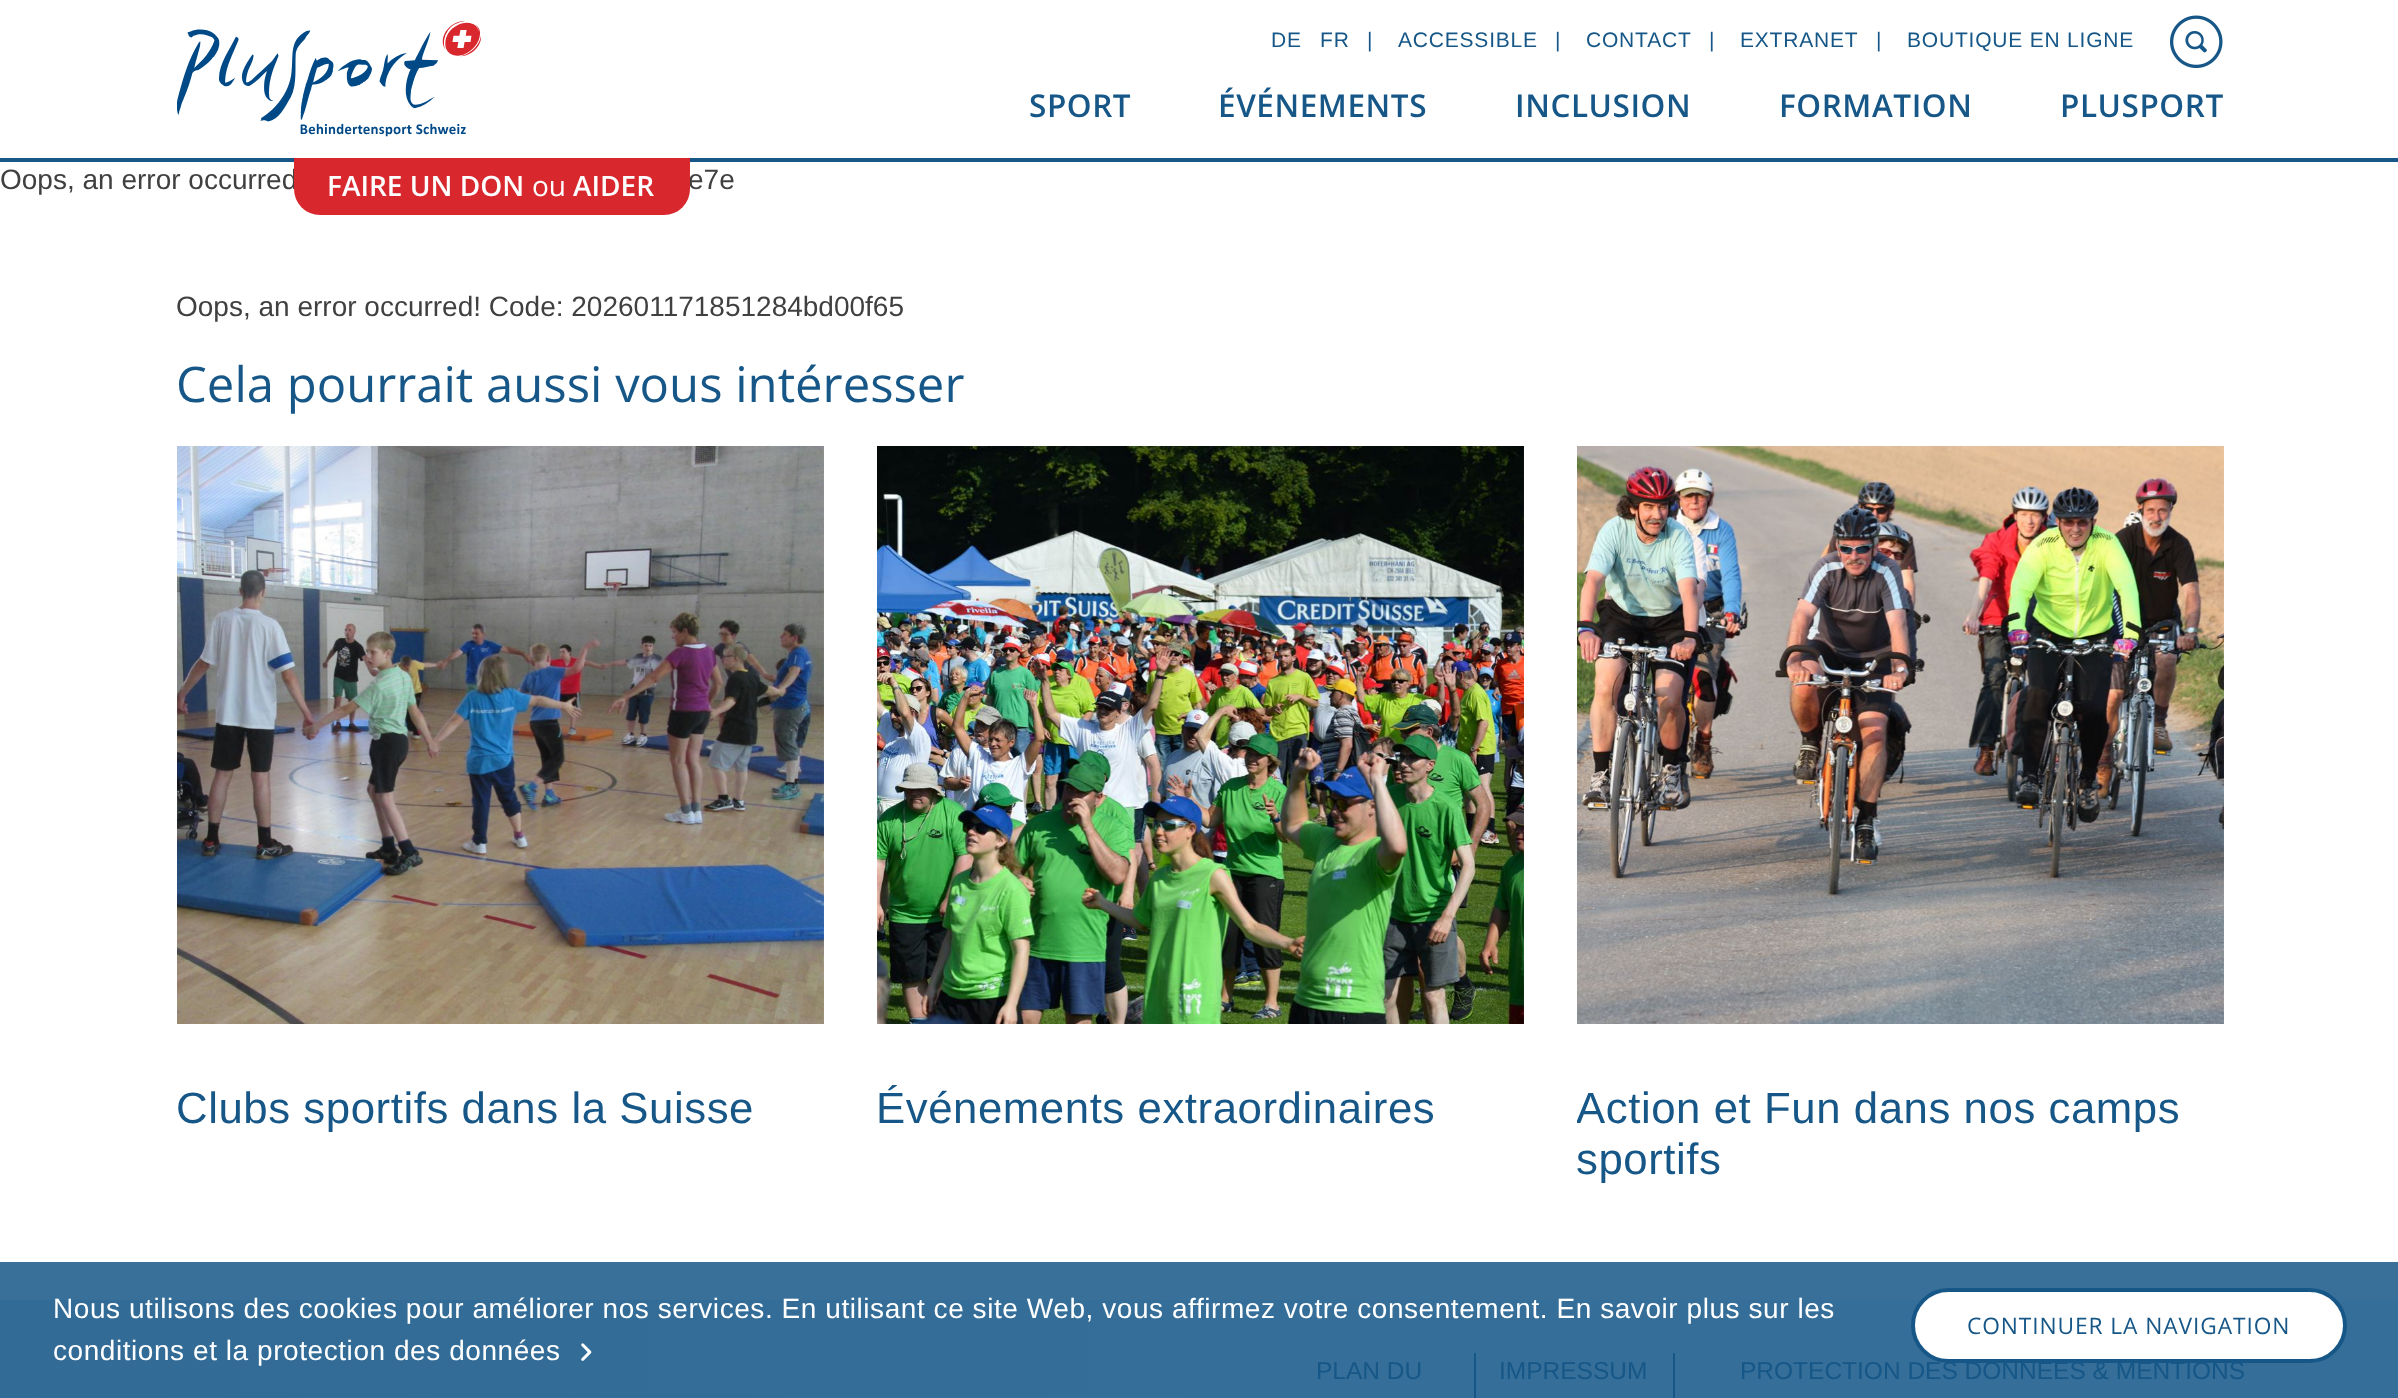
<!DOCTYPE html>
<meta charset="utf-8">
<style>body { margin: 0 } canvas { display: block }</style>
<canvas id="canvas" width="2398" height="1398"></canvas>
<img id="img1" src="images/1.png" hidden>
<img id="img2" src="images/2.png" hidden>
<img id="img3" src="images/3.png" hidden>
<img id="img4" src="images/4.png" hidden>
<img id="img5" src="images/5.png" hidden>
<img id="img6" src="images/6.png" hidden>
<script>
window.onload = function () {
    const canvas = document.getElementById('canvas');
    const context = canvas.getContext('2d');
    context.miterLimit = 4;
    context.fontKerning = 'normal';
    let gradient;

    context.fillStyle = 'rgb(255, 255, 255)';
    context.fillRect(0, 0, 2398, 1398);
    context.fillStyle = 'rgb(57, 112, 154)';
    context.fillRect(0, 1262, 2398, 38);
    context.fillStyle = 'rgb(22, 87, 136)';
    context.fillRect(0, 158, 2398, 4);
    context.drawImage(document.getElementById('img1'), 177, 21, 304, 116);
    context.drawImage(document.getElementById('img2'), 2170, 15, 53, 53);
    context.drawImage(document.getElementById('img3'), 177, 446, 647, 578);
    context.drawImage(document.getElementById('img4'), 877, 446, 647, 578);
    context.drawImage(document.getElementById('img5'), 1577, 446, 647, 578);
    gradient = context.createLinearGradient(0, 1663, 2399, 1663);
    gradient.addColorStop(0, 'rgb(49, 107, 150)');
    gradient.addColorStop(0.5, 'rgb(53, 110, 152)');
    gradient.addColorStop(1, 'rgb(53, 110, 152)');
    context.fillStyle = gradient;
    context.fillRect(0, 1300, 2398, 98);
    context.drawImage(document.getElementById('img6'), 581, 1343, 11, 18);
    context.fillStyle = 'rgb(22, 87, 136)';
    context.fillRect(1474, 1353, 2, 45);
    context.fillRect(1673, 1353, 2, 45);
    context.letterSpacing = '0.8px';
    context.font = '21px Arimo';
    context.fillText('DE', 1271, 47);
    context.fillText('FR', 1320, 47);
    context.letterSpacing = '0px';
    context.fillText('|', 1367, 47);
    context.letterSpacing = '0.8px';
    context.fillText('ACCESSIBLE', 1398, 47);
    context.letterSpacing = '0px';
    context.fillText('|', 1555, 47);
    context.letterSpacing = '0.8px';
    context.fillText('CONTACT', 1586, 47);
    context.letterSpacing = '0px';
    context.fillText('|', 1709, 47);
    context.letterSpacing = '0.8px';
    context.fillText('EXTRANET', 1740, 47);
    context.letterSpacing = '0px';
    context.fillText('|', 1876, 47);
    context.letterSpacing = '0.8px';
    context.fillText('BOUTIQUE EN LIGNE', 1907, 47);
    context.letterSpacing = '0.56px';
    context.font = '600 31.5px Open Sans';
    context.fillText('SPORT', 1029, 117);
    context.fillText('ÉVÉNEMENTS', 1218, 117);
    context.fillText('INCLUSION', 1515, 117);
    context.fillText('FORMATION', 1779, 117);
    context.fillText('PLUSPORT', 2060, 117);
    context.letterSpacing = '0px';
    context.font = '28px Arimo';
    context.fillStyle = 'rgb(64, 64, 64)';
    context.fillText('Oops, an error occurred', 0, 189);
    context.fillText('e7e', 688, 189);
    context.fillStyle = 'rgb(217, 39, 46)';
    context.beginPath();
    context.roundRect(294, 158, 396, 57, [0, 0, 26, 26]);
    context.fill();
    context.font = '600 28px Open Sans';
    context.fillStyle = 'rgb(255, 255, 255)';
    context.fillText('AIDER', 573, 196);
    context.font = '28px Open Sans';
    context.fillText('ou', 532, 196);
    context.font = '600 28px Open Sans';
    context.fillText('FAIRE UN DON', 327, 196);
    context.font = '28px Arimo';
    context.fillStyle = 'rgb(64, 64, 64)';
    context.fillText('Oops, an error occurred! Code: 202601171851284bd00f65', 176, 316);
    context.font = '49px Open Sans';
    context.fillStyle = 'rgb(22, 87, 136)';
    context.fillText('Cela pourrait aussi vous intéresser', 176, 402);
    context.letterSpacing = '0.56px';
    context.font = '43.75px Arimo';
    context.fillText('Clubs sportifs dans la Suisse', 176, 1123);
    context.fillText('Événements extraordinaires', 876, 1123);
    context.save();
    context.beginPath();
    context.rect(1577, 1059, 647, 154);
    context.clip();
    context.fillText('Action et Fun dans nos camps', 1576, 1123);
    context.restore();
    context.fillText('sportifs', 1576, 1174);
    context.font = '28px Arimo';
    context.fillStyle = 'rgb(255, 255, 255)';
    context.fillText('Nous utilisons des cookies pour améliorer nos services. En utilisant ce site Web, vous affirmez votre consentement. En savoir plus sur les', 53, 1318);
    context.fillText('conditions et la protection des données', 53, 1360);
    context.letterSpacing = '0px';
    context.font = '24.5px Arimo';
    context.fillStyle = 'rgb(22, 87, 136)';
    context.fillText('PLAN DU', 1316, 1379);
    context.fillText('IMPRESSUM', 1499, 1379);
    context.fillText('PROTECTION DES DONNÉES & MENTIONS', 1740, 1379);
    context.fillStyle = 'rgb(255, 255, 255)';
    context.beginPath();
    context.roundRect(1913, 1290, 432, 71, 35.5);
    context.fill();
    context.strokeStyle = 'rgb(22, 87, 136)';
    context.lineWidth = 4;
    context.stroke();
    context.letterSpacing = '0.9px';
    context.font = '22.75px Open Sans';
    context.fillStyle = 'rgb(22, 87, 136)';
    context.fillText('CONTINUER LA NAVIGATION', 1967, 1334);
};
</script>
